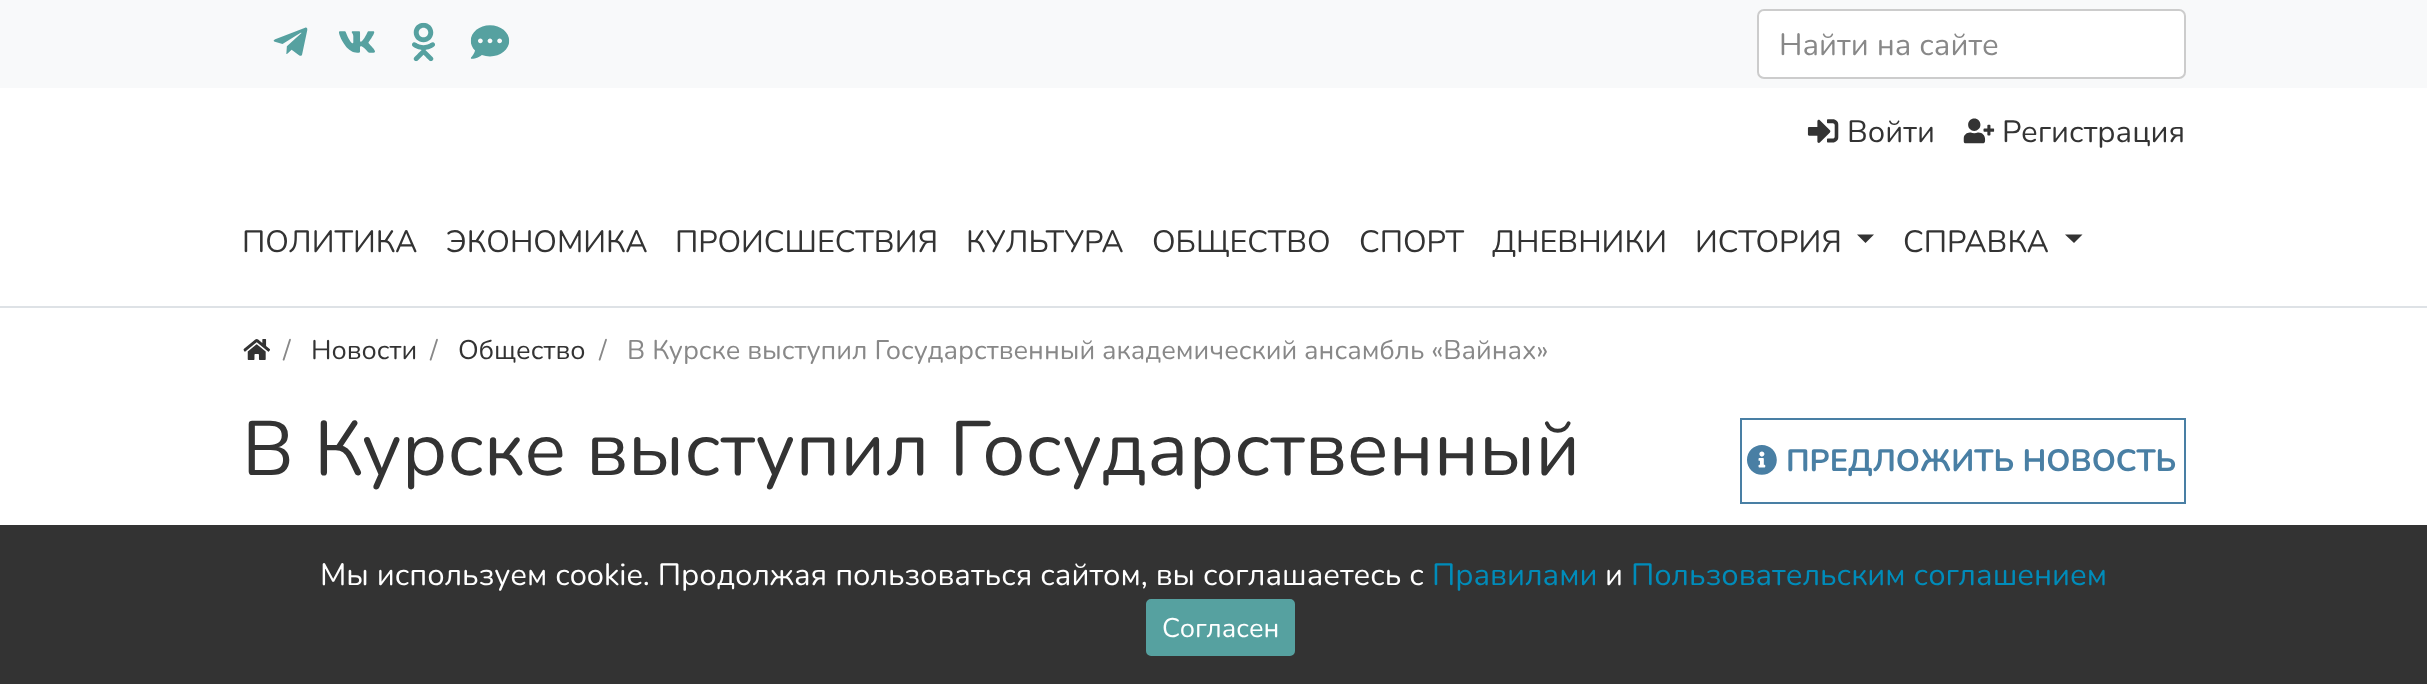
<!DOCTYPE html>
<meta charset="utf-8">
<style>body { margin: 0 } canvas { display: block }</style>
<canvas id="canvas" width="2427" height="684"></canvas>
<img id="img1" src="images/1.png" hidden>
<img id="img2" src="images/2.png" hidden>
<img id="img3" src="images/3.png" hidden>
<img id="img4" src="images/4.png" hidden>
<img id="img5" src="images/5.png" hidden>
<img id="img6" src="images/6.png" hidden>
<img id="img7" src="images/7.png" hidden>
<img id="img8" src="images/8.png" hidden>
<script>
window.onload = function () {
    const canvas = document.getElementById('canvas');
    const context = canvas.getContext('2d');
    context.miterLimit = 4;
    context.fontKerning = 'normal';

    context.fillStyle = 'rgb(255, 255, 255)';
    context.fillRect(0, 0, 2427, 684);
    context.fillStyle = 'rgb(248, 249, 250)';
    context.fillRect(0, 0, 2427, 88);
    context.drawImage(document.getElementById('img1'), 273, 27, 35, 29);
    context.drawImage(document.getElementById('img2'), 339, 31, 36, 22);
    context.drawImage(document.getElementById('img3'), 412, 22, 23, 40);
    context.drawImage(document.getElementById('img4'), 470, 25, 40, 34);
    context.fillStyle = 'rgb(255, 255, 255)';
    context.beginPath();
    context.roundRect(1758, 10, 427, 68, 6);
    context.fill();
    context.strokeStyle = 'rgb(204, 204, 204)';
    context.lineWidth = 2;
    context.stroke();
    context.drawImage(document.getElementById('img5'), 1807, 119, 32, 24);
    context.drawImage(document.getElementById('img6'), 1963, 118, 32, 26);
    context.fillStyle = 'rgb(222, 226, 230)';
    context.fillRect(0, 306, 2427, 2);
    context.fillStyle = 'rgb(51, 51, 51)';
    context.beginPath();
    context.moveTo(1857, 234.5);
    context.lineTo(1874, 234.5);
    context.lineTo(1865.5, 243);
    context.closePath();
    context.fill();
    context.beginPath();
    context.moveTo(2065, 234.5);
    context.lineTo(2082.5, 234.5);
    context.lineTo(2074, 243);
    context.closePath();
    context.fill();
    context.drawImage(document.getElementById('img7'), 243, 339, 27, 21);
    context.strokeStyle = 'rgb(73, 127, 164)';
    context.strokeRect(1741, 419, 444, 84);
    context.drawImage(document.getElementById('img8'), 1747, 445, 30, 30);
    context.fillStyle = 'rgba(0, 0, 0, 0.8)';
    context.fillRect(0, 525, 2427, 159);
    context.fillStyle = 'rgb(86, 161, 160)';
    context.beginPath();
    context.roundRect(1147, 600, 147, 55, 4);
    context.fill();
    context.strokeStyle = 'rgb(86, 161, 160)';
    context.stroke();
    context.font = '30.8px Nunito';
    context.fillStyle = 'rgb(136, 136, 136)';
    context.fillText('Найти на сайте', 1779, 55);
    context.fillStyle = 'rgb(51, 51, 51)';
    context.fillText('Войти', 1847, 142);
    context.fillText('Регистрация', 2002, 142);
    context.fillText('ПОЛИТИКА', 242, 252);
    context.fillText('ЭКОНОМИКА', 446, 252);
    context.fillText('ПРОИСШЕСТВИЯ', 675, 252);
    context.fillText('КУЛЬТУРА', 966, 252);
    context.fillText('ОБЩЕСТВО', 1152, 252);
    context.fillText('СПОРТ', 1359, 252);
    context.fillText('ДНЕВНИКИ', 1492, 252);
    context.fillText('ИСТОРИЯ', 1695, 252);
    context.fillText('СПРАВКА', 1903, 252);
    context.font = '26.95px Nunito';
    context.fillStyle = 'rgb(136, 136, 136)';
    context.fillText('/', 283, 359);
    context.fillStyle = 'rgb(51, 51, 51)';
    context.fillText('Новости', 311, 359);
    context.fillStyle = 'rgb(136, 136, 136)';
    context.fillText('/', 430, 359);
    context.fillStyle = 'rgb(51, 51, 51)';
    context.fillText('Общество', 458, 359);
    context.fillStyle = 'rgb(136, 136, 136)';
    context.fillText('/', 599, 359);
    context.fillText('В Курске выступил Государственный академический ансамбль «Вайнах»', 627, 359);
    context.font = '77px Nunito';
    context.fillStyle = 'rgb(51, 51, 51)';
    context.fillText('В Курске выступил Государственный', 242, 475);
    context.font = 'bold 30.8px Nunito';
    context.fillStyle = 'rgb(73, 127, 164)';
    context.fillText('ПРЕДЛОЖИТЬ НОВОСТЬ', 1786, 471);
    context.font = '30.8px Nunito';
    context.fillStyle = 'rgb(255, 255, 255)';
    context.fillText('Мы используем сookie. Продолжая пользоваться сайтом, вы соглашаетесь с', 320, 585);
    context.fillStyle = 'rgb(0, 140, 186)';
    context.fillText('Правилами', 1432, 585);
    context.fillStyle = 'rgb(255, 255, 255)';
    context.fillText('и', 1605, 585);
    context.fillStyle = 'rgb(0, 140, 186)';
    context.fillText('Пользовательским соглашением', 1631, 585);
    context.font = '26.95px Nunito';
    context.fillStyle = 'rgb(255, 255, 255)';
    context.fillText('Согласен', 1162, 637);
};
</script>
